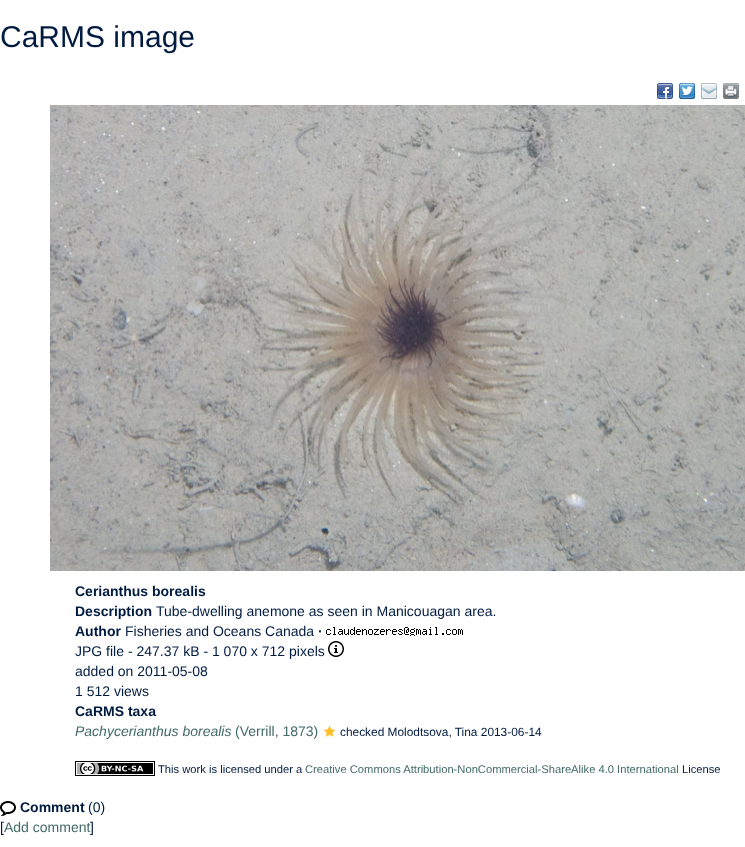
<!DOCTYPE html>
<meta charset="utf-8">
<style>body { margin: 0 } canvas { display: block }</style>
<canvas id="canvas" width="745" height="847"></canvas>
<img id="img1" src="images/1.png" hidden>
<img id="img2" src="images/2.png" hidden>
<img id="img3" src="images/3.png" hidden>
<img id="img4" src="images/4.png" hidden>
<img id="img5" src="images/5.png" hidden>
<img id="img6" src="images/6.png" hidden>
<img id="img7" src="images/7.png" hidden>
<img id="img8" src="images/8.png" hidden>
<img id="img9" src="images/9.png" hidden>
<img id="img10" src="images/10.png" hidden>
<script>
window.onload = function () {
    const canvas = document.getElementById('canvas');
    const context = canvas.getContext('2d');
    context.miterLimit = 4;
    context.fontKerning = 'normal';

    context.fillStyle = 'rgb(255, 255, 255)';
    context.fillRect(0, 0, 745, 847);
    context.drawImage(document.getElementById('img1'), 657, 83, 16, 16);
    context.drawImage(document.getElementById('img2'), 679, 83, 16, 16);
    context.drawImage(document.getElementById('img3'), 701, 83, 16, 16);
    context.drawImage(document.getElementById('img4'), 723, 83, 16, 16);
    context.drawImage(document.getElementById('img5'), 50, 105, 695, 466);
    context.drawImage(document.getElementById('img6'), 326, 627, 137, 9);
    context.drawImage(document.getElementById('img7'), 328, 641, 16, 16);
    context.drawImage(document.getElementById('img8'), 324, 726, 11, 11);
    context.drawImage(document.getElementById('img9'), 75, 761, 80, 15);
    context.drawImage(document.getElementById('img10'), 0, 801, 16, 15);
    context.font = '30px Liberation Sans';
    context.fillStyle = 'rgb(1, 27, 64)';
    context.fillText('CaRMS image', 0, 47);
    context.font = 'bold 14px Liberation Sans';
    context.fillText('Cerianthus borealis', 75, 596);
    context.fillText('Description', 75, 616);
    context.font = '14px Liberation Sans';
    context.fillText('Tube-dwelling anemone as seen in Manicouagan area.', 156, 616);
    context.font = 'bold 14px Liberation Sans';
    context.fillText('Author', 75, 636);
    context.font = '14px Liberation Sans';
    context.fillText('Fisheries and Oceans Canada', 125, 636);
    context.font = 'bold 14px Liberation Sans';
    context.fillText('·', 318, 636);
    context.font = '14px Liberation Sans';
    context.fillText('JPG file - 247.37 kB - 1 070 x 712 pixels', 75, 656);
    context.fillText('added on 2011-05-08', 75, 676);
    context.fillText('1 512 views', 75, 696);
    context.font = 'bold 14px Liberation Sans';
    context.fillText('CaRMS taxa', 75, 716);
    context.font = 'italic 14px Liberation Sans';
    context.fillStyle = 'rgb(67, 107, 103)';
    context.fillText('Pachycerianthus borealis', 75, 736);
    context.font = '14px Liberation Sans';
    context.fillText('(Verrill, 1873)', 235, 736);
    context.font = '11.9px Liberation Sans';
    context.fillStyle = 'rgb(1, 27, 64)';
    context.fillText('checked Molodtsova, Tina 2013-06-14', 340, 736);
    context.font = '11.2px Liberation Sans';
    context.fillText('This work is licensed under a', 158, 773);
    context.fillStyle = 'rgb(67, 107, 103)';
    context.fillText('Creative Commons Attribution-NonCommercial-ShareAlike 4.0 International', 305, 773);
    context.fillStyle = 'rgb(1, 27, 64)';
    context.fillText('License', 682, 773);
    context.font = 'bold 14px Liberation Sans';
    context.fillText('Comment', 20, 812);
    context.font = '14px Liberation Sans';
    context.fillText('(0)', 88, 812);
    context.fillText('[', 0, 832);
    context.fillStyle = 'rgb(67, 107, 103)';
    context.fillText('Add comment', 4, 832);
    context.fillStyle = 'rgb(1, 27, 64)';
    context.fillText(']', 90, 832);
};
</script>
